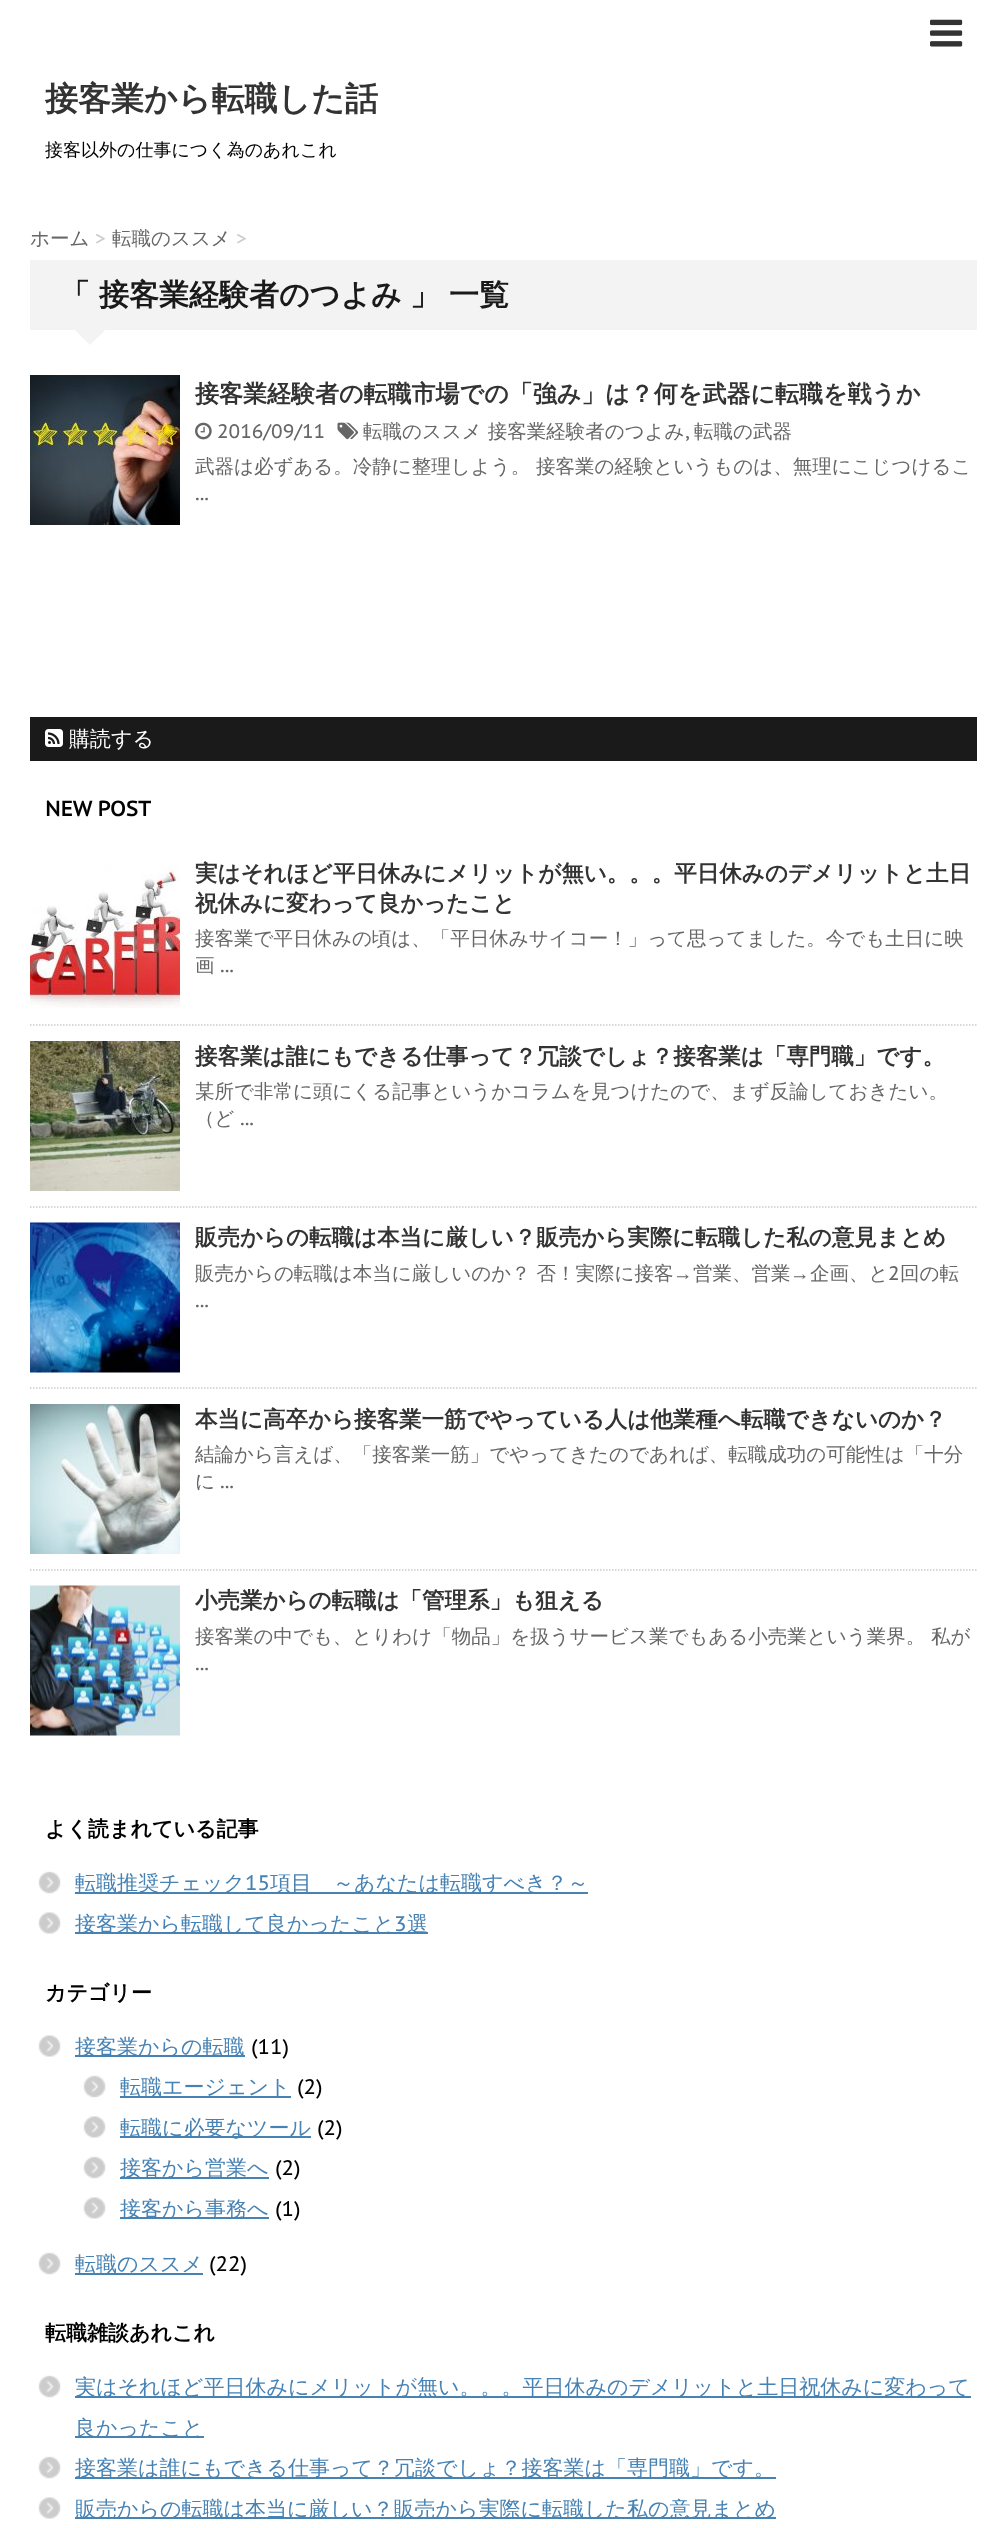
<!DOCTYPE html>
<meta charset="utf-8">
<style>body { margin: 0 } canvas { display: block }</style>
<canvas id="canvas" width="1006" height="2528"></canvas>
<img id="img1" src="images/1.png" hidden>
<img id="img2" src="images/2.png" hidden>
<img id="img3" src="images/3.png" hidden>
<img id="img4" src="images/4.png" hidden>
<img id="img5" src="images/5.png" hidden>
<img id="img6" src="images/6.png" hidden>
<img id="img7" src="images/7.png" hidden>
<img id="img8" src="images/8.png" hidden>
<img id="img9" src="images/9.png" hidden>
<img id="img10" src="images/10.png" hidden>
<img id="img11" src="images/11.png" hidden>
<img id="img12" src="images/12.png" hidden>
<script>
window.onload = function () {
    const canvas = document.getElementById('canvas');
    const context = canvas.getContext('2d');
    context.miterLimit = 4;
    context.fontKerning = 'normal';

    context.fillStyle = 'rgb(255, 255, 255)';
    context.fillRect(0, 0, 1006, 2528);
    context.drawImage(document.getElementById('img1'), 930, 19, 33, 28);
    context.fillStyle = 'rgb(243, 243, 243)';
    context.fillRect(30, 260, 947, 70);
    context.beginPath();
    context.moveTo(75, 330);
    context.lineTo(105, 330);
    context.lineTo(90, 345);
    context.closePath();
    context.fill();
    context.beginPath();
    context.moveTo(78, 330);
    context.bezierCurveTo(77, 330, 76.5, 330.5, 76, 331);
    context.lineTo(82.5, 337.5);
    context.lineTo(97.5, 337.5);
    context.lineTo(104, 331);
    context.bezierCurveTo(103.5, 330.5, 103, 330, 102, 330);
    context.closePath();
    context.fill();
    context.drawImage(document.getElementById('img2'), 30, 375, 150, 150);
    context.drawImage(document.getElementById('img3'), 195, 422, 17, 18);
    context.drawImage(document.getElementById('img4'), 337, 422, 22, 18);
    context.fillStyle = 'rgb(26, 26, 26)';
    context.fillRect(30, 717, 947, 44);
    context.drawImage(document.getElementById('img5'), 45, 729, 18, 18);
    context.beginPath();
    context.moveTo(30, 1025);
    context.lineTo(976.5, 1025);
    context.strokeStyle = 'rgb(204, 204, 204)';
    context.lineWidth = 1.5;
    context.setLineDash([1.5, 1.5]);
    context.stroke();
    context.drawImage(document.getElementById('img6'), 30, 866, 150, 142);
    context.beginPath();
    context.moveTo(30, 1207);
    context.lineTo(976.5, 1207);
    context.stroke();
    context.drawImage(document.getElementById('img7'), 30, 1041, 150, 150);
    context.beginPath();
    context.moveTo(30, 1388);
    context.lineTo(976.5, 1388);
    context.stroke();
    context.drawImage(document.getElementById('img8'), 30, 1222, 150, 151);
    context.beginPath();
    context.moveTo(30, 1570);
    context.lineTo(976.5, 1570);
    context.stroke();
    context.drawImage(document.getElementById('img9'), 30, 1404, 150, 150);
    context.drawImage(document.getElementById('img10'), 30, 1585, 150, 151);
    context.drawImage(document.getElementById('img11'), 38, 1871, 23, 23);
    context.fillStyle = 'rgb(70, 130, 180)';
    context.fillRect(75, 1892, 513, 2);
    context.drawImage(document.getElementById('img12'), 38, 1912, 23, 22);
    context.fillRect(75, 1932, 353, 2);
    context.drawImage(document.getElementById('img12'), 38, 2035, 23, 22);
    context.fillRect(75, 2055, 170, 2);
    context.drawImage(document.getElementById('img11'), 83, 2075, 23, 23);
    context.fillRect(120, 2096, 171, 2);
    context.drawImage(document.getElementById('img12'), 83, 2116, 23, 22);
    context.fillRect(120, 2136, 191, 2);
    context.drawImage(document.getElementById('img11'), 83, 2156, 23, 23);
    context.fillRect(120, 2177, 149, 2);
    context.drawImage(document.getElementById('img12'), 83, 2197, 23, 22);
    context.fillRect(120, 2217, 149, 2);
    context.drawImage(document.getElementById('img11'), 38, 2252, 23, 23);
    context.fillRect(75, 2273, 128, 2);
    context.drawImage(document.getElementById('img11'), 38, 2375, 23, 23);
    context.fillRect(75, 2396, 896, 2);
    context.fillRect(75, 2436, 129, 2);
    context.drawImage(document.getElementById('img11'), 38, 2456, 23, 23);
    context.fillRect(75, 2477, 701, 2);
    context.drawImage(document.getElementById('img12'), 38, 2497, 23, 22);
    context.fillRect(75, 2517, 701, 2);
    context.font = 'bold 33px WenQuanYi Zen Hei';
    context.fillStyle = 'rgb(51, 51, 51)';
    context.fillText('接客業から転職した話', 45, 110);
    context.font = '500 18px WenQuanYi Zen Hei';
    context.fillStyle = 'rgb(0, 0, 0)';
    context.fillText('接客以外の仕事につく為のあれこれ', 45, 156);
    context.font = '500 19.5px WenQuanYi Zen Hei';
    context.fillStyle = 'rgb(102, 102, 102)';
    context.fillText('ホーム', 30, 245);
    context.font = '19.5px PT Sans Caption';
    context.fillStyle = 'rgb(204, 204, 204)';
    context.fillText('>', 95, 245);
    context.font = '500 19.5px WenQuanYi Zen Hei';
    context.fillStyle = 'rgb(102, 102, 102)';
    context.fillText('転職のススメ', 112, 245);
    context.font = '19.5px PT Sans Caption';
    context.fillStyle = 'rgb(204, 204, 204)';
    context.fillText('>', 236, 245);
    context.font = 'bold 30px WenQuanYi Zen Hei';
    context.fillStyle = 'rgb(26, 26, 26)';
    context.fillText('「 接客業経験者のつよみ', 60, 305);
    context.fillText('」 一覧', 410, 305);
    context.font = 'bold 24px WenQuanYi Zen Hei';
    context.fillStyle = 'rgb(51, 51, 51)';
    context.fillText('接客業経験者の転職市場での「強み」は？何を武器に転職を戦うか', 195, 402);
    context.font = '19.5px PT Sans Caption';
    context.fillStyle = 'rgb(102, 102, 102)';
    context.fillText('2016/09/11', 217, 438);
    context.font = '500 19.5px WenQuanYi Zen Hei';
    context.fillText('転職のススメ 接客業経験者のつよみ', 363, 438);
    context.font = '19.5px PT Sans Caption';
    context.fillText(',', 685, 438);
    context.font = '500 19.5px WenQuanYi Zen Hei';
    context.fillText('転職の武器', 694, 438);
    context.fillText('武器は必ずある。冷静に整理しよう。 接客業の経験というものは、無理にこじつけるこ', 195, 473);
    context.font = '19.5px PT Sans Caption';
    context.fillText('...', 195, 500);
    context.font = '500 21px WenQuanYi Zen Hei';
    context.fillStyle = 'rgb(255, 255, 255)';
    context.fillText('購読する', 69, 746);
    context.font = 'bold 21px PT Sans Caption';
    context.fillStyle = 'rgb(0, 0, 0)';
    context.fillText('NEW POST', 45, 816);
    context.font = 'bold 22.5px WenQuanYi Zen Hei';
    context.fillStyle = 'rgb(51, 51, 51)';
    context.fillText('実はそれほど平日休みにメリットが無い。。。平日休みのデメリットと土日', 195, 881);
    context.fillText('祝休みに変わって良かったこと', 195, 911);
    context.font = '500 19.5px WenQuanYi Zen Hei';
    context.fillStyle = 'rgb(102, 102, 102)';
    context.fillText('接客業で平日休みの頃は、「平日休みサイコー！」って思ってました。今でも土日に映', 195, 945);
    context.fillText('画', 195, 972);
    context.font = '19.5px PT Sans Caption';
    context.fillText('...', 220, 972);
    context.font = 'bold 22.5px WenQuanYi Zen Hei';
    context.fillStyle = 'rgb(51, 51, 51)';
    context.fillText('接客業は誰にもできる仕事って？冗談でしょ？接客業は「専門職」です。', 195, 1064);
    context.font = '500 19.5px WenQuanYi Zen Hei';
    context.fillStyle = 'rgb(102, 102, 102)';
    context.fillText('某所で非常に頭にくる記事というかコラムを見つけたので、まず反論しておきたい。', 195, 1098);
    context.fillText('（ど', 195, 1125);
    context.font = '19.5px PT Sans Caption';
    context.fillText('...', 240, 1125);
    context.font = 'bold 22.5px WenQuanYi Zen Hei';
    context.fillStyle = 'rgb(51, 51, 51)';
    context.fillText('販売からの転職は本当に厳しい？販売から実際に転職した私の意見まとめ', 195, 1245);
    context.font = '500 19.5px WenQuanYi Zen Hei';
    context.fillStyle = 'rgb(102, 102, 102)';
    context.fillText('販売からの転職は本当に厳しいのか？ 否！実際に接客', 195, 1280);
    context.font = '19.5px Liberation Sans';
    context.fillText('→', 673, 1280);
    context.font = '500 19.5px WenQuanYi Zen Hei';
    context.fillText('営業、営業', 693, 1280);
    context.font = '19.5px Liberation Sans';
    context.fillText('→', 790, 1280);
    context.font = '500 19.5px WenQuanYi Zen Hei';
    context.fillText('企画、と', 810, 1280);
    context.font = '19.5px PT Sans Caption';
    context.fillText('2', 888, 1280);
    context.font = '500 19.5px WenQuanYi Zen Hei';
    context.fillText('回の転', 900, 1280);
    context.font = '19.5px PT Sans Caption';
    context.fillText('...', 195, 1307);
    context.font = 'bold 22.5px WenQuanYi Zen Hei';
    context.fillStyle = 'rgb(51, 51, 51)';
    context.fillText('本当に高卒から接客業一筋でやっている人は他業種へ転職できないのか？', 195, 1427);
    context.font = '500 19.5px WenQuanYi Zen Hei';
    context.fillStyle = 'rgb(102, 102, 102)';
    context.fillText('結論から言えば、「接客業一筋」でやってきたのであれば、転職成功の可能性は「十分', 195, 1461);
    context.fillText('に', 195, 1488);
    context.font = '19.5px PT Sans Caption';
    context.fillText('...', 220, 1488);
    context.font = 'bold 22.5px WenQuanYi Zen Hei';
    context.fillStyle = 'rgb(51, 51, 51)';
    context.fillText('小売業からの転職は「管理系」も狙える', 195, 1608);
    context.font = '500 19.5px WenQuanYi Zen Hei';
    context.fillStyle = 'rgb(102, 102, 102)';
    context.fillText('接客業の中でも、とりわけ「物品」を扱うサービス業でもある小売業という業界。 私が', 195, 1643);
    context.font = '19.5px PT Sans Caption';
    context.fillText('...', 195, 1670);
    context.font = 'bold 21px WenQuanYi Zen Hei';
    context.fillStyle = 'rgb(0, 0, 0)';
    context.fillText('よく読まれている記事', 45, 1836);
    context.font = '500 21px WenQuanYi Zen Hei';
    context.fillStyle = 'rgb(70, 130, 180)';
    context.fillText('転職推奨チェック', 75, 1890);
    context.font = '21px PT Sans Caption';
    context.fillText('15', 245, 1890);
    context.font = '500 21px WenQuanYi Zen Hei';
    context.fillText('項目　～あなたは転職すべき？～', 270, 1890);
    context.fillText('接客業から転職して良かったこと', 75, 1931);
    context.font = '21px PT Sans Caption';
    context.fillText('3', 394, 1931);
    context.font = '500 21px WenQuanYi Zen Hei';
    context.fillText('選', 407, 1931);
    context.font = 'bold 21px WenQuanYi Zen Hei';
    context.fillStyle = 'rgb(0, 0, 0)';
    context.fillText('カテゴリー', 45, 2000);
    context.font = '500 21px WenQuanYi Zen Hei';
    context.fillStyle = 'rgb(70, 130, 180)';
    context.fillText('接客業からの転職', 75, 2054);
    context.font = '21px PT Sans Caption';
    context.fillStyle = 'rgb(0, 0, 0)';
    context.fillText('(11)', 251, 2054);
    context.font = '500 21px WenQuanYi Zen Hei';
    context.fillStyle = 'rgb(70, 130, 180)';
    context.fillText('転職エージェント', 120, 2094);
    context.font = '21px PT Sans Caption';
    context.fillStyle = 'rgb(0, 0, 0)';
    context.fillText('(2)', 297, 2094);
    context.font = '500 21px WenQuanYi Zen Hei';
    context.fillStyle = 'rgb(70, 130, 180)';
    context.fillText('転職に必要なツール', 120, 2135);
    context.font = '21px PT Sans Caption';
    context.fillStyle = 'rgb(0, 0, 0)';
    context.fillText('(2)', 317, 2135);
    context.font = '500 21px WenQuanYi Zen Hei';
    context.fillStyle = 'rgb(70, 130, 180)';
    context.fillText('接客から営業へ', 120, 2175);
    context.font = '21px PT Sans Caption';
    context.fillStyle = 'rgb(0, 0, 0)';
    context.fillText('(2)', 275, 2175);
    context.font = '500 21px WenQuanYi Zen Hei';
    context.fillStyle = 'rgb(70, 130, 180)';
    context.fillText('接客から事務へ', 120, 2216);
    context.font = '21px PT Sans Caption';
    context.fillStyle = 'rgb(0, 0, 0)';
    context.fillText('(1)', 275, 2216);
    context.font = '500 21px WenQuanYi Zen Hei';
    context.fillStyle = 'rgb(70, 130, 180)';
    context.fillText('転職のススメ', 75, 2271);
    context.font = '21px PT Sans Caption';
    context.fillStyle = 'rgb(0, 0, 0)';
    context.fillText('(22)', 209, 2271);
    context.font = 'bold 21px WenQuanYi Zen Hei';
    context.fillText('転職雑談あれこれ', 45, 2340);
    context.font = '500 21px WenQuanYi Zen Hei';
    context.fillStyle = 'rgb(70, 130, 180)';
    context.fillText('実はそれほど平日休みにメリットが無い。。。平日休みのデメリットと土日祝休みに変わって', 75, 2394);
    context.fillText('良かったこと', 75, 2435);
    context.fillText('接客業は誰にもできる仕事って？冗談でしょ？接客業は「専門職」です。', 75, 2475);
    context.fillText('販売からの転職は本当に厳しい？販売から実際に転職した私の意見まとめ', 75, 2516);
};
</script>
